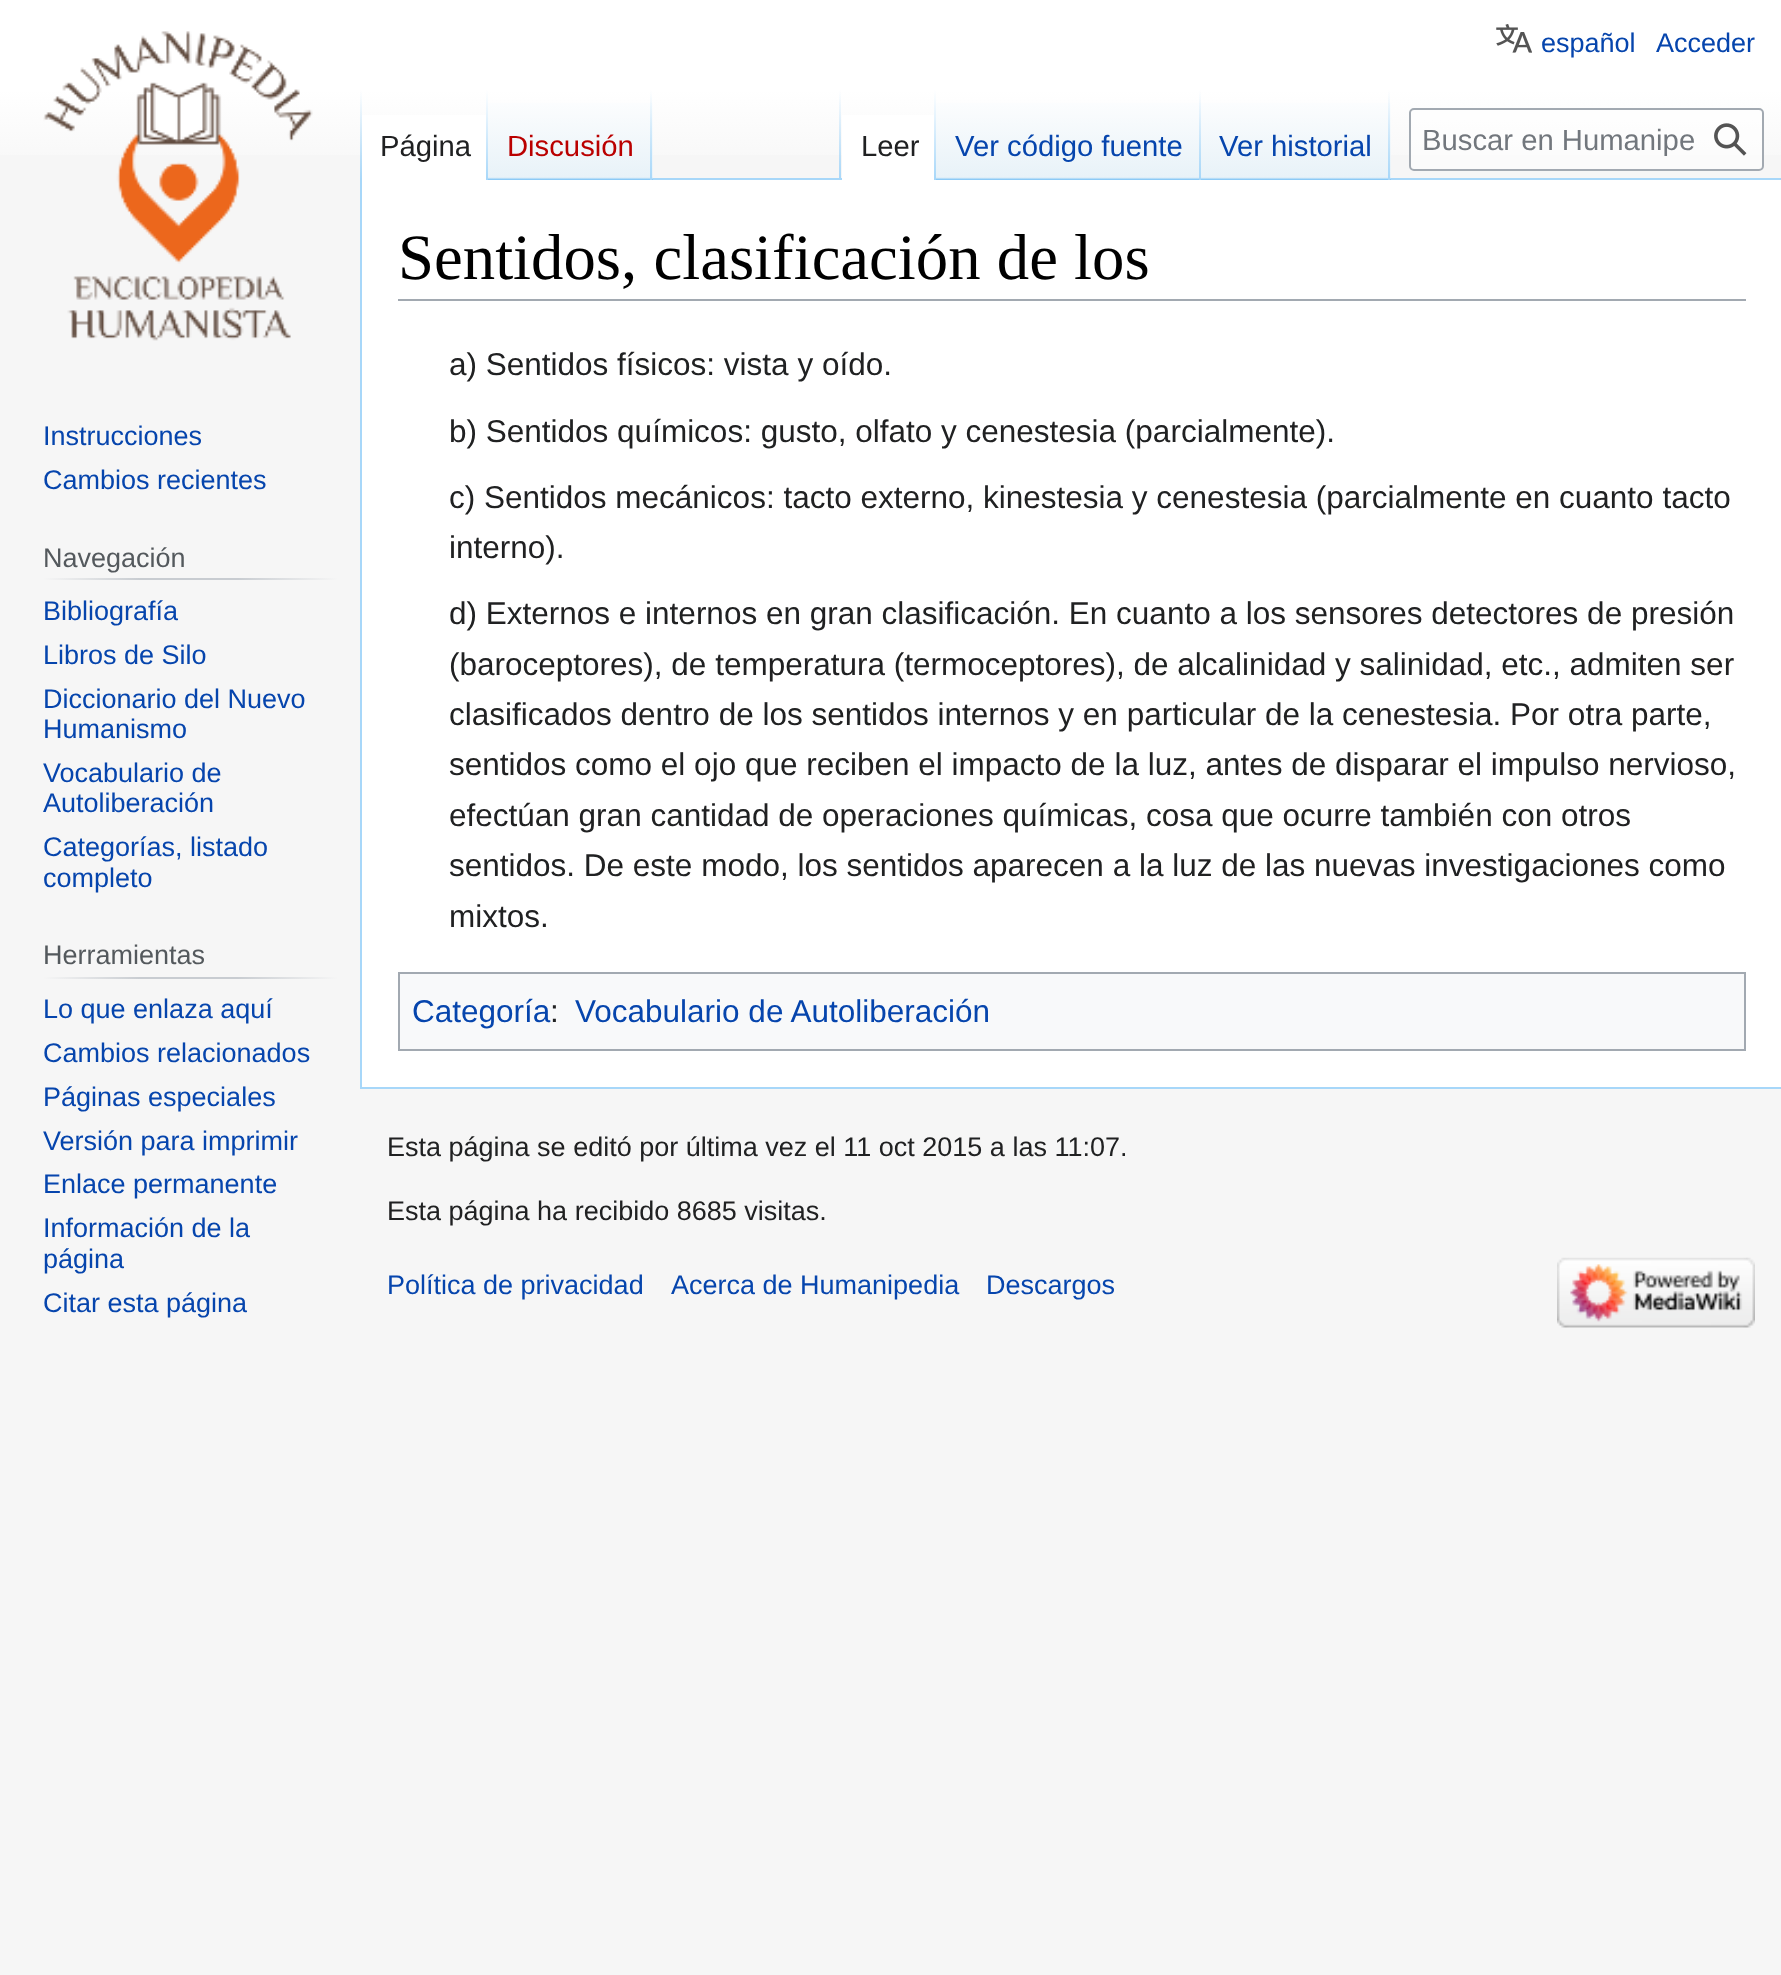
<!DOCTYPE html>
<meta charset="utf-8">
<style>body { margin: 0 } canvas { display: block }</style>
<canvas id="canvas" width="1781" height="1975"></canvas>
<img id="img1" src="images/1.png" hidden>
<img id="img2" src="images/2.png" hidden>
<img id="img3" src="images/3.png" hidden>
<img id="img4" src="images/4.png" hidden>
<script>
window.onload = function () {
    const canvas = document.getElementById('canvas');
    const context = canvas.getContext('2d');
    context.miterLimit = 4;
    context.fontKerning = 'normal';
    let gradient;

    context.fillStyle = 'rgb(246, 246, 246)';
    context.fillRect(0, 0, 1781, 1975);
    gradient = context.createLinearGradient(891, 0, 891, 180);
    gradient.addColorStop(0.5, 'rgb(255, 255, 255)');
    gradient.addColorStop(1, 'rgb(246, 246, 246)');
    context.fillStyle = gradient;
    context.fillRect(0, 0, 1781, 155);
    context.drawImage(document.getElementById('img1'), 1496, 24, 36, 29);
    context.fillStyle = 'rgb(167, 215, 249)';
    context.fillRect(360, 1087, 1421, 2);
    context.fillRect(360, 178, 2, 911);
    gradient = context.createLinearGradient(361, 90, 361, 180);
    gradient.addColorStop(0, 'rgba(167, 215, 249, 0)');
    gradient.addColorStop(1, 'rgb(167, 215, 249)');
    context.fillStyle = gradient;
    context.fillRect(360, 90, 2, 90);
    context.fillStyle = 'rgb(255, 255, 255)';
    context.fillRect(362, 115, 124, 65);
    gradient = context.createLinearGradient(487, 90, 487, 180);
    gradient.addColorStop(0, 'rgb(255, 255, 255)');
    gradient.addColorStop(1, 'rgb(167, 215, 249)');
    context.fillStyle = gradient;
    context.fillRect(486, 90, 2, 90);
    gradient = context.createLinearGradient(570, 180, 570, 90);
    gradient.addColorStop(0, 'rgb(119, 193, 246)');
    gradient.addColorStop(0.03, 'rgb(232, 242, 248)');
    gradient.addColorStop(1, 'rgb(255, 255, 255)');
    context.fillStyle = gradient;
    context.fillRect(488, 103, 165, 77);
    gradient = context.createLinearGradient(651, 90, 651, 180);
    gradient.addColorStop(0, 'rgba(167, 215, 249, 0)');
    gradient.addColorStop(1, 'rgb(167, 215, 249)');
    context.fillStyle = gradient;
    context.fillRect(650, 90, 2, 90);
    context.fillStyle = 'rgb(167, 215, 249)';
    context.fillRect(653, 178, 1128, 2);
    gradient = context.createLinearGradient(840, 90, 840, 180);
    gradient.addColorStop(0, 'rgba(167, 215, 249, 0)');
    gradient.addColorStop(1, 'rgb(167, 215, 249)');
    context.fillStyle = gradient;
    context.fillRect(839, 90, 2, 90);
    context.fillStyle = 'rgb(255, 255, 255)';
    context.fillRect(842, 115, 92, 65);
    gradient = context.createLinearGradient(935, 90, 935, 180);
    gradient.addColorStop(0, 'rgb(255, 255, 255)');
    gradient.addColorStop(1, 'rgb(167, 215, 249)');
    context.fillStyle = gradient;
    context.fillRect(934, 90, 2, 90);
    gradient = context.createLinearGradient(1069, 180, 1069, 90);
    gradient.addColorStop(0, 'rgb(119, 193, 246)');
    gradient.addColorStop(0.03, 'rgb(232, 242, 248)');
    gradient.addColorStop(1, 'rgb(255, 255, 255)');
    context.fillStyle = gradient;
    context.fillRect(936, 103, 266, 77);
    gradient = context.createLinearGradient(1200, 90, 1200, 180);
    gradient.addColorStop(0, 'rgba(167, 215, 249, 0)');
    gradient.addColorStop(1, 'rgb(167, 215, 249)');
    context.fillStyle = gradient;
    context.fillRect(1199, 90, 2, 90);
    gradient = context.createLinearGradient(1296, 180, 1296, 90);
    gradient.addColorStop(0, 'rgb(119, 193, 246)');
    gradient.addColorStop(0.03, 'rgb(232, 242, 248)');
    gradient.addColorStop(1, 'rgb(255, 255, 255)');
    context.fillStyle = gradient;
    context.fillRect(1202, 103, 189, 77);
    gradient = context.createLinearGradient(1389, 90, 1389, 180);
    gradient.addColorStop(0, 'rgba(167, 215, 249, 0)');
    gradient.addColorStop(1, 'rgb(167, 215, 249)');
    context.fillStyle = gradient;
    context.fillRect(1388, 90, 2, 90);
    context.fillStyle = 'rgba(255, 255, 255, 0.5)';
    context.beginPath();
    context.roundRect(1410, 109, 353, 61, 4);
    context.fill();
    context.strokeStyle = 'rgb(162, 169, 177)';
    context.lineWidth = 2;
    context.stroke();
    context.drawImage(document.getElementById('img2'), 1714, 123, 33, 33);
    context.drawImage(document.getElementById('img3'), 43, 31, 270, 310);
    gradient = context.createLinearGradient(43, 579, 338, 579);
    gradient.addColorStop(0, 'rgb(246, 246, 246)');
    gradient.addColorStop(0.33, 'rgb(200, 204, 209)');
    gradient.addColorStop(0.66, 'rgb(200, 204, 209)');
    gradient.addColorStop(1, 'rgb(246, 246, 246)');
    context.fillStyle = gradient;
    context.fillRect(43, 578, 295, 2);
    gradient = context.createLinearGradient(43, 978, 338, 978);
    gradient.addColorStop(0, 'rgb(246, 246, 246)');
    gradient.addColorStop(0.33, 'rgb(200, 204, 209)');
    gradient.addColorStop(0.66, 'rgb(200, 204, 209)');
    gradient.addColorStop(1, 'rgb(246, 246, 246)');
    context.fillStyle = gradient;
    context.fillRect(43, 977, 295, 2);
    context.fillStyle = 'rgb(255, 255, 255)';
    context.fillRect(362, 180, 1419, 907);
    context.fillStyle = 'rgb(162, 169, 177)';
    context.fillRect(398, 299, 1348, 2);
    context.fillStyle = 'rgb(248, 249, 250)';
    context.beginPath();
    context.rect(399, 973, 1346, 77);
    context.fill();
    context.stroke();
    context.drawImage(document.getElementById('img4'), 1557, 1257, 198, 71);
    context.font = '27px Liberation Sans';
    context.fillStyle = 'rgb(6, 69, 173)';
    context.fillText('español', 1541, 52);
    context.fillText('Acceder', 1656, 52);
    context.font = '29.25px Liberation Sans';
    context.fillStyle = 'rgb(32, 33, 34)';
    context.fillText('Página', 380, 156);
    context.fillStyle = 'rgb(186, 0, 0)';
    context.fillText('Discusión', 507, 156);
    context.fillStyle = 'rgb(32, 33, 34)';
    context.fillText('Leer', 861, 156);
    context.fillStyle = 'rgb(6, 69, 173)';
    context.fillText('Ver código fuente', 955, 156);
    context.fillText('Ver historial', 1219, 156);
    context.fillStyle = 'rgb(114, 119, 125)';
    context.fillText('Buscar en Humanipe', 1422, 150);
    context.font = '27px Liberation Sans';
    context.fillStyle = 'rgb(6, 69, 173)';
    context.fillText('Instrucciones', 43, 445);
    context.fillText('Cambios recientes', 43, 489);
    context.fillStyle = 'rgb(84, 89, 93)';
    context.fillText('Navegación', 43, 567);
    context.fillStyle = 'rgb(6, 69, 173)';
    context.fillText('Bibliografía', 43, 620);
    context.fillText('Libros de Silo', 43, 664);
    context.fillText('Diccionario del Nuevo', 43, 708);
    context.fillText('Humanismo', 43, 738);
    context.fillText('Vocabulario de', 43, 782);
    context.fillText('Autoliberación', 43, 812);
    context.fillText('Categorías, listado', 43, 856);
    context.fillText('completo', 43, 887);
    context.fillStyle = 'rgb(84, 89, 93)';
    context.fillText('Herramientas', 43, 964);
    context.fillStyle = 'rgb(6, 69, 173)';
    context.fillText('Lo que enlaza aquí', 43, 1018);
    context.fillText('Cambios relacionados', 43, 1062);
    context.fillText('Páginas especiales', 43, 1106);
    context.fillText('Versión para imprimir', 43, 1150);
    context.fillText('Enlace permanente', 43, 1193);
    context.fillText('Información de la', 43, 1237);
    context.fillText('página', 43, 1268);
    context.fillText('Citar esta página', 43, 1312);
    context.font = '64.75px Liberation Serif';
    context.fillStyle = 'rgb(0, 0, 0)';
    context.fillText('Sentidos, clasificación de los', 398, 279);
    context.font = '31.5px Liberation Sans';
    context.fillStyle = 'rgb(32, 33, 34)';
    context.fillText('a) Sentidos físicos: vista y oído.', 449, 375);
    context.fillText('b) Sentidos químicos: gusto, olfato y cenestesia (parcialmente).', 449, 442);
    context.fillText('c) Sentidos mecánicos: tacto externo, kinestesia y cenestesia (parcialmente en cuanto tacto', 449, 508);
    context.fillText('interno).', 449, 558);
    context.fillText('d) Externos e internos en gran clasificación. En cuanto a los sensores detectores de presión', 449, 624);
    context.fillText('(baroceptores), de temperatura (termoceptores), de alcalinidad y salinidad, etc., admiten ser', 449, 675);
    context.fillText('clasificados dentro de los sentidos internos y en particular de la cenestesia. Por otra parte,', 449, 725);
    context.fillText('sentidos como el ojo que reciben el impacto de la luz, antes de disparar el impulso nervioso,', 449, 775);
    context.fillText('efectúan gran cantidad de operaciones químicas, cosa que ocurre también con otros', 449, 826);
    context.fillText('sentidos. De este modo, los sentidos aparecen a la luz de las nuevas investigaciones como', 449, 876);
    context.fillText('mixtos.', 449, 927);
    context.fillStyle = 'rgb(6, 69, 173)';
    context.fillText('Categoría', 412, 1022);
    context.fillStyle = 'rgb(32, 33, 34)';
    context.fillText(':', 550, 1022);
    context.fillStyle = 'rgb(6, 69, 173)';
    context.fillText('Vocabulario de Autoliberación', 575, 1022);
    context.font = '27px Liberation Sans';
    context.fillStyle = 'rgb(32, 33, 34)';
    context.fillText('Esta página se editó por última vez el 11 oct 2015 a las 11:07.', 387, 1156);
    context.fillText('Esta página ha recibido 8685 visitas.', 387, 1220);
    context.fillStyle = 'rgb(6, 69, 173)';
    context.fillText('Política de privacidad', 387, 1294);
    context.fillText('Acerca de Humanipedia', 671, 1294);
    context.fillText('Descargos', 986, 1294);
};
</script>
